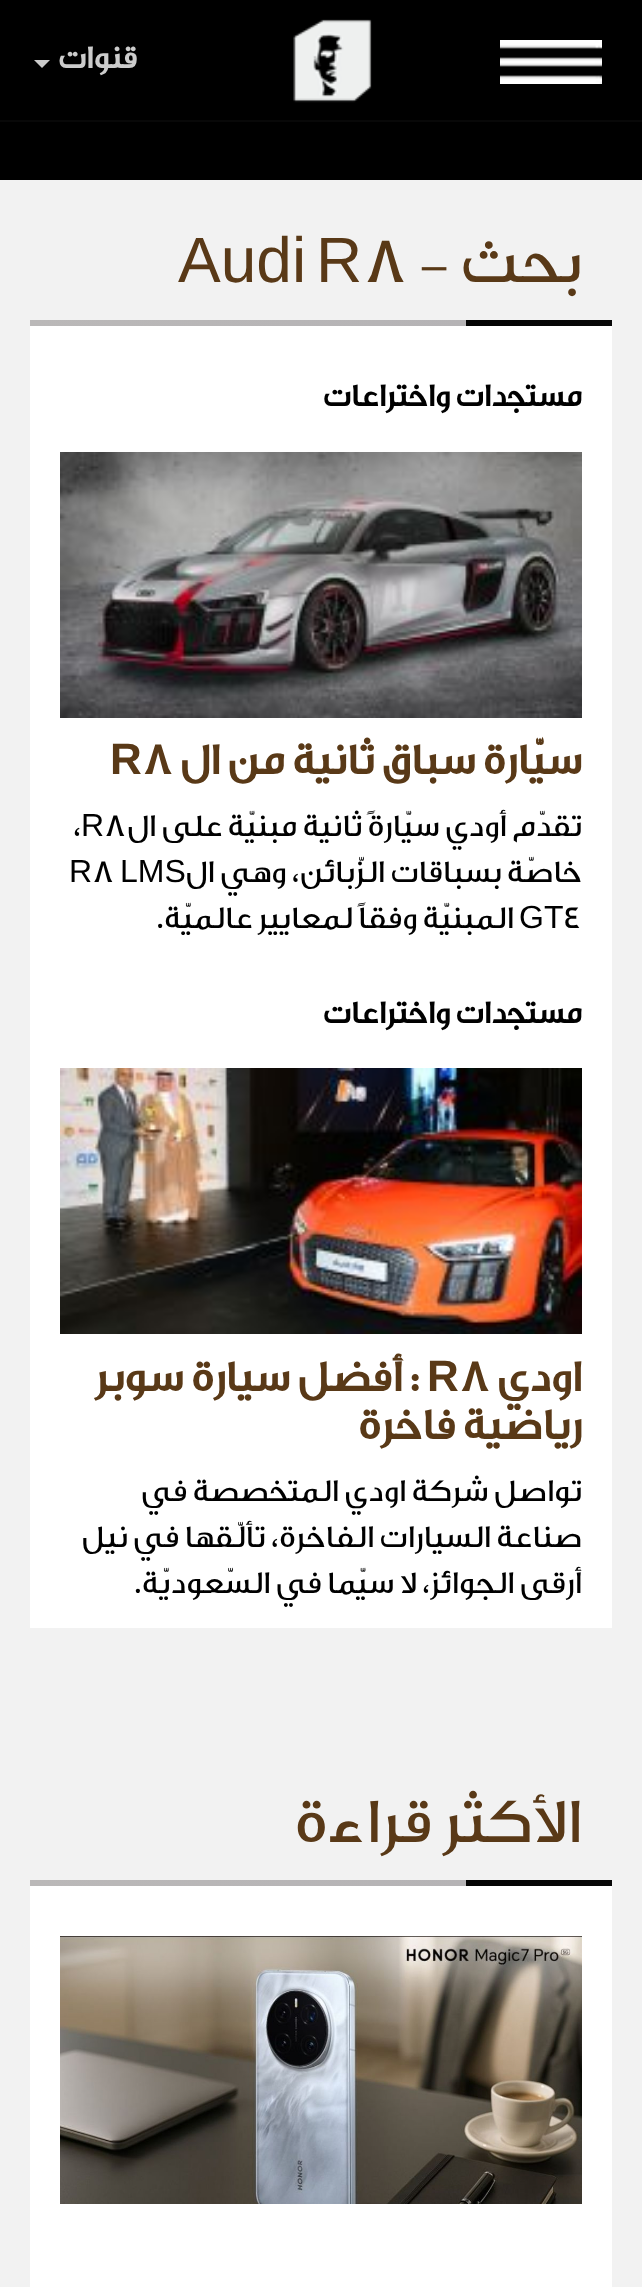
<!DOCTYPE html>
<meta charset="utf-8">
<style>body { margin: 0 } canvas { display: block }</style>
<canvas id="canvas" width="642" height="2287"></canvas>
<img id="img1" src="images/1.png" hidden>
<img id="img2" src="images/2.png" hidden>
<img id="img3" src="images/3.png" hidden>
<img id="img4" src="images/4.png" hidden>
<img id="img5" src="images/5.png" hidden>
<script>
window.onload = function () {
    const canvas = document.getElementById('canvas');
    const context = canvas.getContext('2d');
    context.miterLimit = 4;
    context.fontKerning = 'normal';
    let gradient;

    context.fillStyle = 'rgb(242, 242, 242)';
    context.fillRect(0, 0, 642, 2287);
    context.fillStyle = 'rgb(0, 0, 0)';
    context.fillRect(0, 0, 642, 120);
    context.fillStyle = 'rgb(8, 8, 8)';
    context.fillRect(0, 120, 642, 2);
    context.drawImage(document.getElementById('img1'), 293, 19, 79, 84);
    context.drawImage(document.getElementById('img2'), 500, 40, 102, 44);
    context.fillStyle = 'rgb(204, 204, 204)';
    context.beginPath();
    context.moveTo(34, 60);
    context.lineTo(50, 60);
    context.lineTo(42, 68);
    context.closePath();
    context.fill();
    context.fillStyle = 'rgb(0, 0, 0)';
    context.fillRect(0, 122, 642, 58);
    gradient = context.createLinearGradient(30, 323, 612, 323);
    gradient.addColorStop(0, 'rgb(186, 184, 184)');
    gradient.addColorStop(0.75, 'rgb(181, 179, 181)');
    gradient.addColorStop(0.75, 'rgb(3, 3, 3)');
    gradient.addColorStop(1, 'rgb(8, 8, 8)');
    context.fillStyle = gradient;
    context.fillRect(30, 320, 582, 6);
    context.fillStyle = 'rgb(255, 255, 255)';
    context.fillRect(30, 326, 582, 1302);
    context.drawImage(document.getElementById('img3'), 60, 452, 522, 266);
    context.drawImage(document.getElementById('img4'), 60, 1068, 522, 266);
    gradient = context.createLinearGradient(30, 1883, 612, 1883);
    gradient.addColorStop(0, 'rgb(186, 184, 184)');
    gradient.addColorStop(0.75, 'rgb(181, 179, 181)');
    gradient.addColorStop(0.75, 'rgb(3, 3, 3)');
    gradient.addColorStop(1, 'rgb(8, 8, 8)');
    context.fillStyle = gradient;
    context.fillRect(30, 1880, 582, 6);
    context.fillStyle = 'rgb(255, 255, 255)';
    context.fillRect(30, 1886, 582, 401);
    context.drawImage(document.getElementById('img5'), 60, 1936, 522, 268);
    context.direction = 'rtl';
    context.font = 'bold 32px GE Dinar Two';
    context.fillStyle = 'rgb(204, 204, 204)';
    context.fillText('قنوات', 137, 68);
    context.font = '500 64px GE Dinar Two';
    context.fillStyle = 'rgb(89, 57, 23)';
    context.fillText('بحث -', 582, 282);
    context.direction = 'ltr';
    context.fillText('8', 363, 282);
    context.wordSpacing = '-8px';
    context.font = '64px Liberation Sans';
    context.fillText('Audi R', 178, 282);
    context.wordSpacing = '0px';
    context.direction = 'rtl';
    context.font = 'bold 32px GE Dinar Two';
    context.fillStyle = 'rgb(0, 0, 0)';
    context.fillText('مستجدات واختراعات', 582, 406);
    context.font = 'bold 44px GE Dinar Two';
    context.fillStyle = 'rgb(89, 57, 23)';
    context.fillText('سيّارة سباق ثانية من ال', 582, 774);
    context.direction = 'ltr';
    context.fillText('8', 142, 774);
    context.font = 'bold 44px Liberation Sans';
    context.fillText('R', 110, 774);
    context.direction = 'rtl';
    context.font = '500 32px GE Dinar Two';
    context.fillStyle = 'rgb(0, 0, 0)';
    context.fillText('تقدّم أودي سيّارةً ثانية مبنيّة على ال', 582, 836);
    context.direction = 'ltr';
    context.fillText('8', 104, 836);
    context.font = '32px Liberation Sans';
    context.fillText('R', 81, 836);
    context.font = '500 32px GE Dinar Two';
    context.fillText('،', 73, 836);
    context.direction = 'rtl';
    context.fillText('خاصّة بسباقات الزّبائن، وهي ال', 582, 882);
    context.direction = 'ltr';
    context.font = '32px Liberation Sans';
    context.fillText('LMS', 120, 882);
    context.font = '500 32px GE Dinar Two';
    context.fillText('8', 92, 882);
    context.font = '32px Liberation Sans';
    context.fillText('R', 69, 882);
    context.font = '500 32px GE Dinar Two';
    context.fillText('4', 563, 928);
    context.font = '32px Liberation Sans';
    context.fillText('GT', 519, 928);
    context.direction = 'rtl';
    context.font = '500 32px GE Dinar Two';
    context.fillText('المبنيّة وفقاً لمعايير عالميّة.', 514, 928);
    context.font = 'bold 32px GE Dinar Two';
    context.fillText('مستجدات واختراعات', 582, 1023);
    context.font = 'bold 44px GE Dinar Two';
    context.fillStyle = 'rgb(89, 57, 23)';
    context.fillText('اودي', 582, 1391);
    context.direction = 'ltr';
    context.fillText('8', 459, 1391);
    context.font = 'bold 44px Liberation Sans';
    context.fillText('R', 427, 1391);
    context.direction = 'rtl';
    context.font = 'bold 44px GE Dinar Two';
    context.fillText(': أفضل سيارة سوبر', 420, 1391);
    context.fillText('رياضية فاخرة', 582, 1439);
    context.font = '500 32px GE Dinar Two';
    context.fillStyle = 'rgb(0, 0, 0)';
    context.fillText('تواصل شركة اودي المتخصصة في', 582, 1501);
    context.fillText('صناعة السيارات الفاخرة، تألّقها في نيل', 582, 1547);
    context.fillText('أرقى الجوائز، لا سيّما في السّعوديّة.', 582, 1593);
    context.font = '500 64px GE Dinar Two';
    context.fillStyle = 'rgb(89, 57, 23)';
    context.fillText('الأكثر قراءة', 582, 1842);
};
</script>
